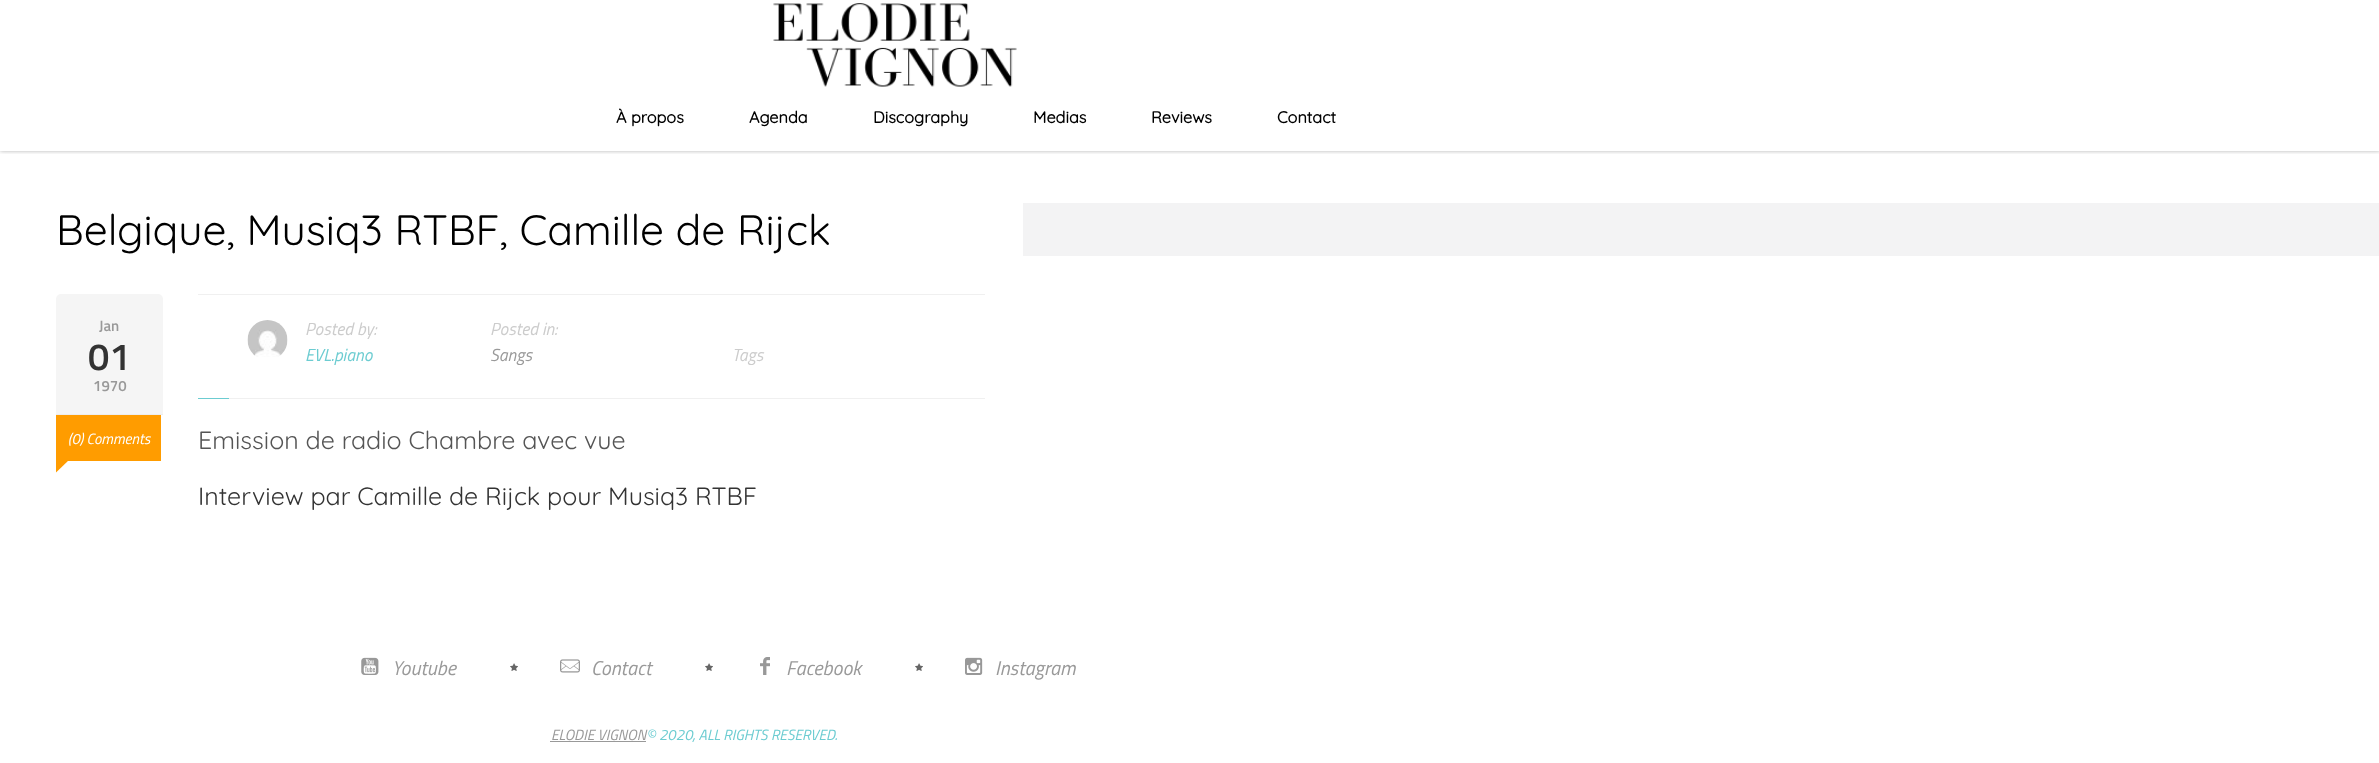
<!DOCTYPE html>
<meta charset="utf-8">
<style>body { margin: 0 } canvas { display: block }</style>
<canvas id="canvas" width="2379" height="763"></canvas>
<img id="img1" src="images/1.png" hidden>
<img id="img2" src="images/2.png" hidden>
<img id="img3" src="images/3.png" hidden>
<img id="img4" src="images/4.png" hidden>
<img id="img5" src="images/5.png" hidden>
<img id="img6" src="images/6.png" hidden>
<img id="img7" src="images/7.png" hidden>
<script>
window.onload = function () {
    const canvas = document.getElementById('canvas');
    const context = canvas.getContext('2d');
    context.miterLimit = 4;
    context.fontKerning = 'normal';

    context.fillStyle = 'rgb(255, 255, 255)';
    context.fillRect(0, 0, 2379, 763);
    context.save();
    context.beginPath();
    context.rect(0, 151, 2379, 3);
    context.clip();
    context.fillStyle = 'rgba(0, 0, 0, 0.3)';
    context.filter = 'blur(2px)';
    context.beginPath();
    context.rect(0, 0, 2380, 151);
    context.fill();
    context.filter = 'none';
    context.restore();
    context.drawImage(document.getElementById('img1'), 773, 3, 244, 84);
    context.fillStyle = 'rgb(245, 245, 245)';
    context.beginPath();
    context.roundRect(56, 294, 107, 121, [5, 5, 0, 0]);
    context.fill();
    context.fillStyle = 'rgb(237, 237, 237)';
    context.fillRect(56, 414, 107, 1);
    context.fillStyle = 'rgb(255, 156, 0)';
    context.fillRect(56, 415, 105, 46);
    context.beginPath();
    context.moveTo(56, 460);
    context.lineTo(69, 460);
    context.lineTo(56, 472.5);
    context.closePath();
    context.fill();
    context.fillStyle = 'rgb(240, 240, 240)';
    context.fillRect(198, 294, 787, 1);
    context.fillRect(229, 398, 756, 1);
    context.drawImage(document.getElementById('img2'), 247, 320, 41, 37);
    context.fillStyle = 'rgb(108, 204, 209)';
    context.fillRect(198, 398, 31, 1);
    context.fillStyle = 'rgb(243, 243, 244)';
    context.fillRect(1023, 203, 1356, 53);
    context.drawImage(document.getElementById('img3'), 361, 657, 18, 18);
    context.drawImage(document.getElementById('img4'), 510, 663, 8, 8);
    context.drawImage(document.getElementById('img5'), 560, 659, 20, 14);
    context.drawImage(document.getElementById('img4'), 705, 663, 8, 8);
    context.drawImage(document.getElementById('img6'), 760, 657, 10, 18);
    context.drawImage(document.getElementById('img4'), 915, 663, 8, 8);
    context.drawImage(document.getElementById('img7'), 965, 657, 18, 18);
    context.fillStyle = 'rgb(153, 153, 153)';
    context.fillRect(550, 741, 96, 1);
    context.font = 'bold 16.25px Quicksand';
    context.fillStyle = 'rgb(0, 0, 0)';
    context.fillText('À propos', 616, 123);
    context.fillText('Agenda', 749, 123);
    context.fillText('Discography', 873, 123);
    context.fillText('Medias', 1033, 123);
    context.fillText('Reviews', 1151, 123);
    context.fillText('Contact', 1277, 123);
    context.font = '300 42.5px Quicksand';
    context.fillText('Belgique, Musiq3 RTBF, Camille de Rijck', 56, 245);
    context.font = '600 15px Titillium Web';
    context.fillStyle = 'rgb(153, 153, 153)';
    context.fillText('Jan', 99, 331);
    context.font = '600 38px Titillium Web';
    context.fillStyle = 'rgb(51, 51, 51)';
    context.fillText('01', 88, 370);
    context.font = '600 15px Titillium Web';
    context.fillStyle = 'rgb(153, 153, 153)';
    context.fillText('1970', 93, 391);
    context.font = 'italic 15px Titillium Web';
    context.fillStyle = 'rgb(255, 255, 255)';
    context.fillText('(0) Comments', 68, 444);
    context.font = 'italic 17.5px Titillium Web';
    context.fillStyle = 'rgb(204, 204, 204)';
    context.fillText('Posted by:', 305, 335);
    context.fillStyle = 'rgb(108, 204, 209)';
    context.fillText('EVL.piano', 305, 361);
    context.fillStyle = 'rgb(204, 204, 204)';
    context.fillText('Posted in:', 490, 335);
    context.fillStyle = 'rgb(153, 153, 153)';
    context.fillText('Sangs', 490, 361);
    context.fillStyle = 'rgb(204, 204, 204)';
    context.fillText('Tags', 732, 361);
    context.font = '300 25px Quicksand';
    context.fillStyle = 'rgb(85, 85, 85)';
    context.fillText('Emission de radio Chambre avec vue', 198, 449);
    context.fillStyle = 'rgb(51, 51, 51)';
    context.fillText('Interview par Camille de Rijck pour Musiq3 RTBF', 198, 505);
    context.font = 'italic 20px Titillium Web';
    context.fillStyle = 'rgb(153, 153, 153)';
    context.fillText('Youtube', 392, 675);
    context.fillText('Contact', 591, 675);
    context.fillText('Facebook', 786, 675);
    context.fillText('Instagram', 995, 675);
    context.font = 'italic 15px Titillium Web';
    context.fillText('ELODIE VIGNON', 551, 740);
    context.fillStyle = 'rgb(108, 204, 209)';
    context.fillText('© 2020, ALL RIGHTS RESERVED.', 646, 740);
};
</script>
